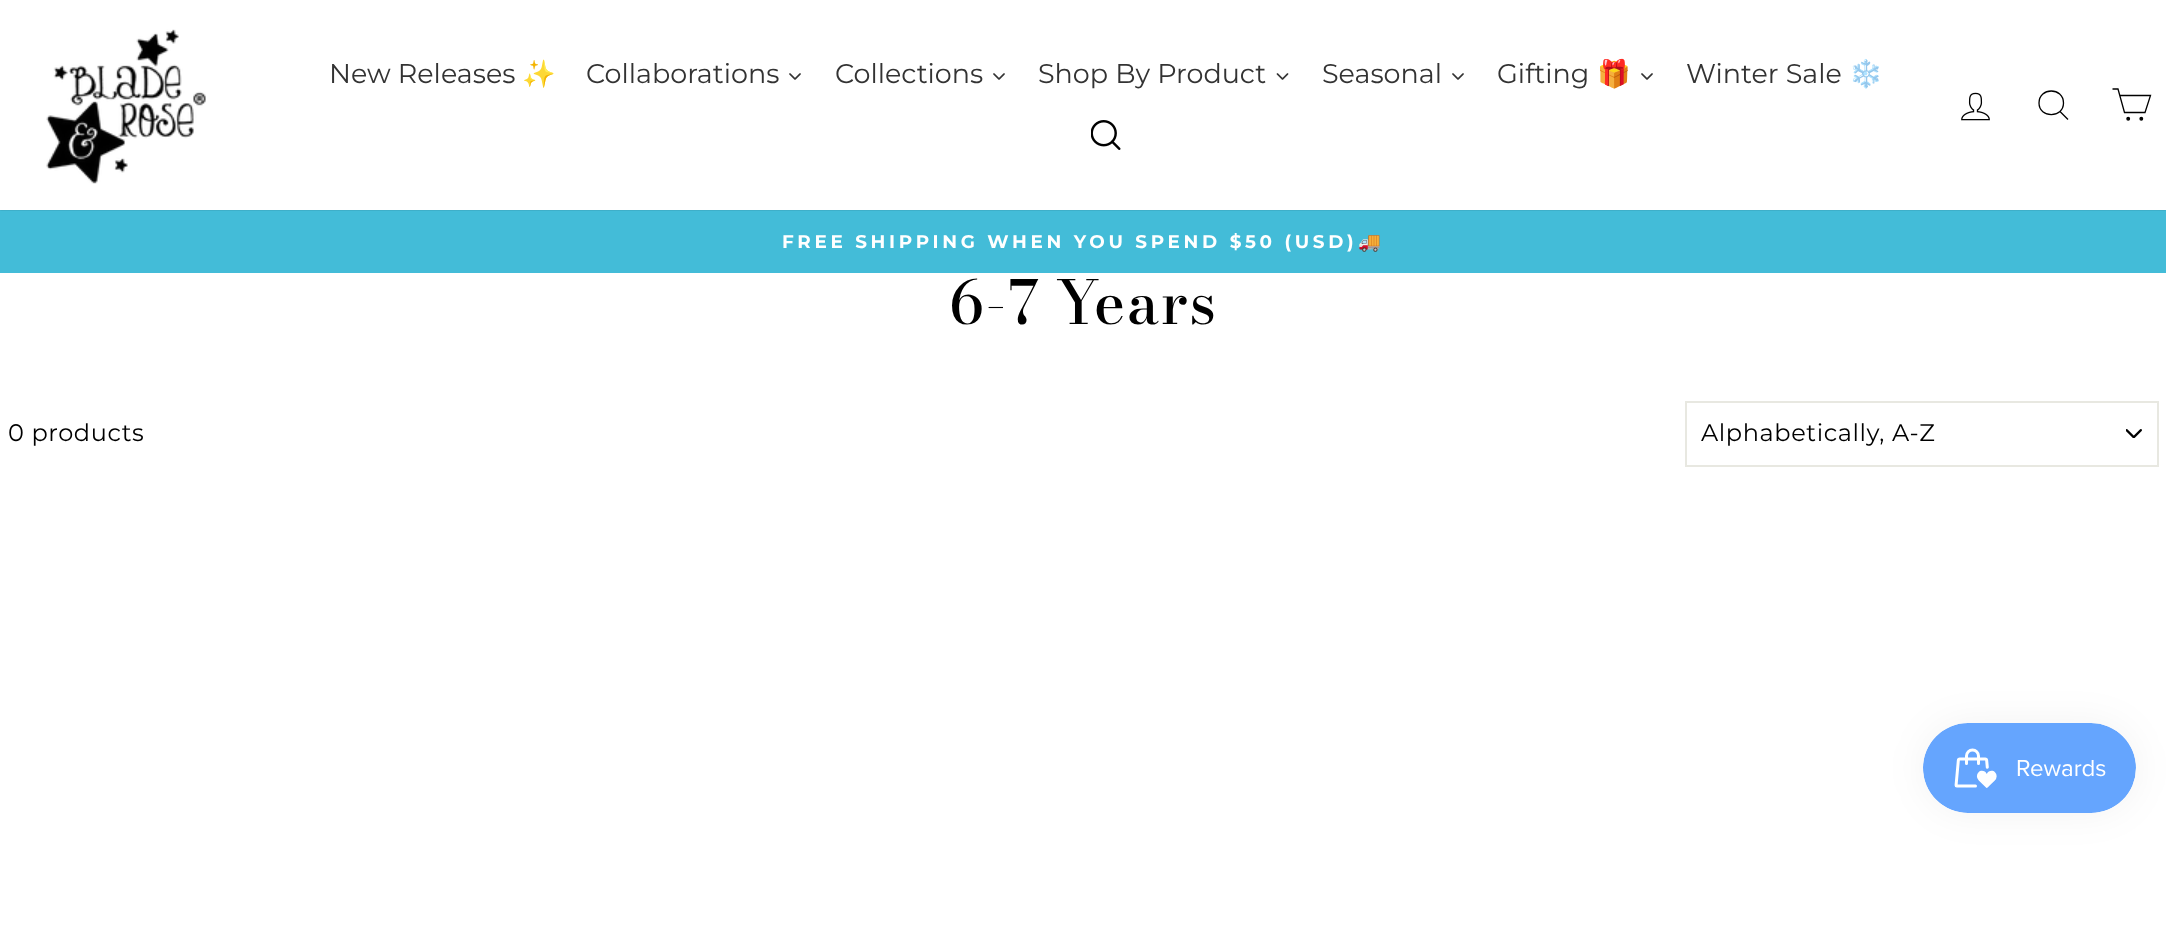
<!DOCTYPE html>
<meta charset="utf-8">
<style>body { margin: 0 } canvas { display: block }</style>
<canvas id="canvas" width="2166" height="933"></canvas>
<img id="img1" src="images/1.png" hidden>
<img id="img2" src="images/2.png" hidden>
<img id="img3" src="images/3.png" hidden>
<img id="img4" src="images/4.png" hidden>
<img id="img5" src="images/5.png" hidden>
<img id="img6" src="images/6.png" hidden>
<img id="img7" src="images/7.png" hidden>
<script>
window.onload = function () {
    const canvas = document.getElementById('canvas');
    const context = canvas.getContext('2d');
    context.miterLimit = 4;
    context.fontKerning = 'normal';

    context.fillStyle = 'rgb(255, 255, 255)';
    context.fillRect(0, 0, 2166, 933);
    context.fillStyle = 'rgb(67, 188, 216)';
    context.fillRect(0, 210, 2166, 63);
    context.save();
    context.beginPath();
    context.rect(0, 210, 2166, 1);
    context.clip();
    context.fillStyle = 'rgba(0, 0, 0, 0.2)';
    context.filter = 'blur(1px)';
    context.beginPath();
    context.rect(0, 0, 2166, 210);
    context.fill();
    context.filter = 'none';
    context.restore();
    context.drawImage(document.getElementById('img1'), 46, 29, 160, 155);
    context.drawImage(document.getElementById('img2'), 789, 73, 12, 7);
    context.drawImage(document.getElementById('img2'), 993, 73, 12, 7);
    context.drawImage(document.getElementById('img3'), 1276, 73, 13, 7);
    context.drawImage(document.getElementById('img2'), 1452, 73, 12, 7);
    context.drawImage(document.getElementById('img2'), 1641, 73, 12, 7);
    context.drawImage(document.getElementById('img4'), 1091, 120, 30, 30);
    context.drawImage(document.getElementById('img5'), 1961, 92, 29, 29);
    context.beginPath();
    context.moveTo(2063.5, 103);
    context.bezierCurveTo(2063.5, 118.5, 2039, 118.5, 2039, 103);
    context.bezierCurveTo(2039, 87, 2063.5, 87, 2063.5, 103);
    context.closePath();
    context.moveTo(2068, 119.5);
    context.lineTo(2060, 111.5);
    context.strokeStyle = 'rgb(0, 0, 0)';
    context.lineWidth = 1.3;
    context.stroke();
    context.beginPath();
    context.moveTo(2119.5, 95.5);
    context.lineTo(2150.5, 95.5);
    context.lineTo(2145, 112.5);
    context.lineTo(2124.5, 112.5);
    context.lineTo(2118, 89);
    context.lineTo(2112.5, 89);
    context.stroke();
    context.fillStyle = 'rgb(0, 0, 0)';
    context.beginPath();
    context.arc(2128.2, 118.8, 1.3, 0, 2 * Math.PI);
    context.fill();
    context.stroke();
    context.beginPath();
    context.arc(2141.3, 118.8, 1.3, 0, 2 * Math.PI);
    context.fill();
    context.stroke();
    context.drawImage(document.getElementById('img6'), 2126, 429, 16, 9);
    context.strokeStyle = 'rgb(232, 232, 225)';
    context.lineWidth = 2;
    context.strokeRect(1686, 402, 472, 64);
    context.fillStyle = 'rgba(0, 0, 0, 0.05)';
    context.filter = 'blur(19px)';
    context.beginPath();
    context.roundRect(1923, 723, 213, 90, 45);
    context.fill();
    context.filter = 'none';
    context.drawImage(document.getElementById('img7'), 1923, 723, 213, 90);
    context.font = '100 27px Montserrat';
    context.fillStyle = 'rgb(51, 51, 51)';
    context.fillText('New Releases', 329, 83);
    context.font = '27px Noto Color Emoji';
    context.fillText('✨', 522, 83);
    context.font = '100 27px Montserrat';
    context.fillText('Collaborations', 586, 83);
    context.fillText('Collections', 835, 83);
    context.fillText('Shop By Product', 1038, 83);
    context.fillText('Seasonal', 1322, 83);
    context.fillText('Gifting', 1497, 83);
    context.font = '27px Noto Color Emoji';
    context.fillText('🎁', 1597, 83);
    context.font = '100 27px Montserrat';
    context.fillText('Winter Sale', 1686, 83);
    context.font = '27px Noto Color Emoji';
    context.fillText('❄️', 1849, 83);
    context.letterSpacing = '3.65px';
    context.font = 'bold 18.35px Montserrat';
    context.fillStyle = 'rgb(255, 255, 255)';
    context.fillText('FREE SHIPPING WHEN YOU SPEND $50 (USD)', 782, 248);
    context.font = 'bold 18.35px Noto Color Emoji';
    context.fillText('🚚', 1358, 248);
    context.letterSpacing = '1.5px';
    context.wordSpacing = '-1px';
    context.font = '500 60px Bodoni Moda';
    context.fillStyle = 'rgb(0, 0, 0)';
    context.fillText('6-7 Years', 949, 324);
    context.letterSpacing = '0.6px';
    context.wordSpacing = '0px';
    context.font = '100 24px Montserrat';
    context.fillText('0 products', 8, 441);
    context.fillText('Alphabetically, A-Z', 1701, 441);
};
</script>
